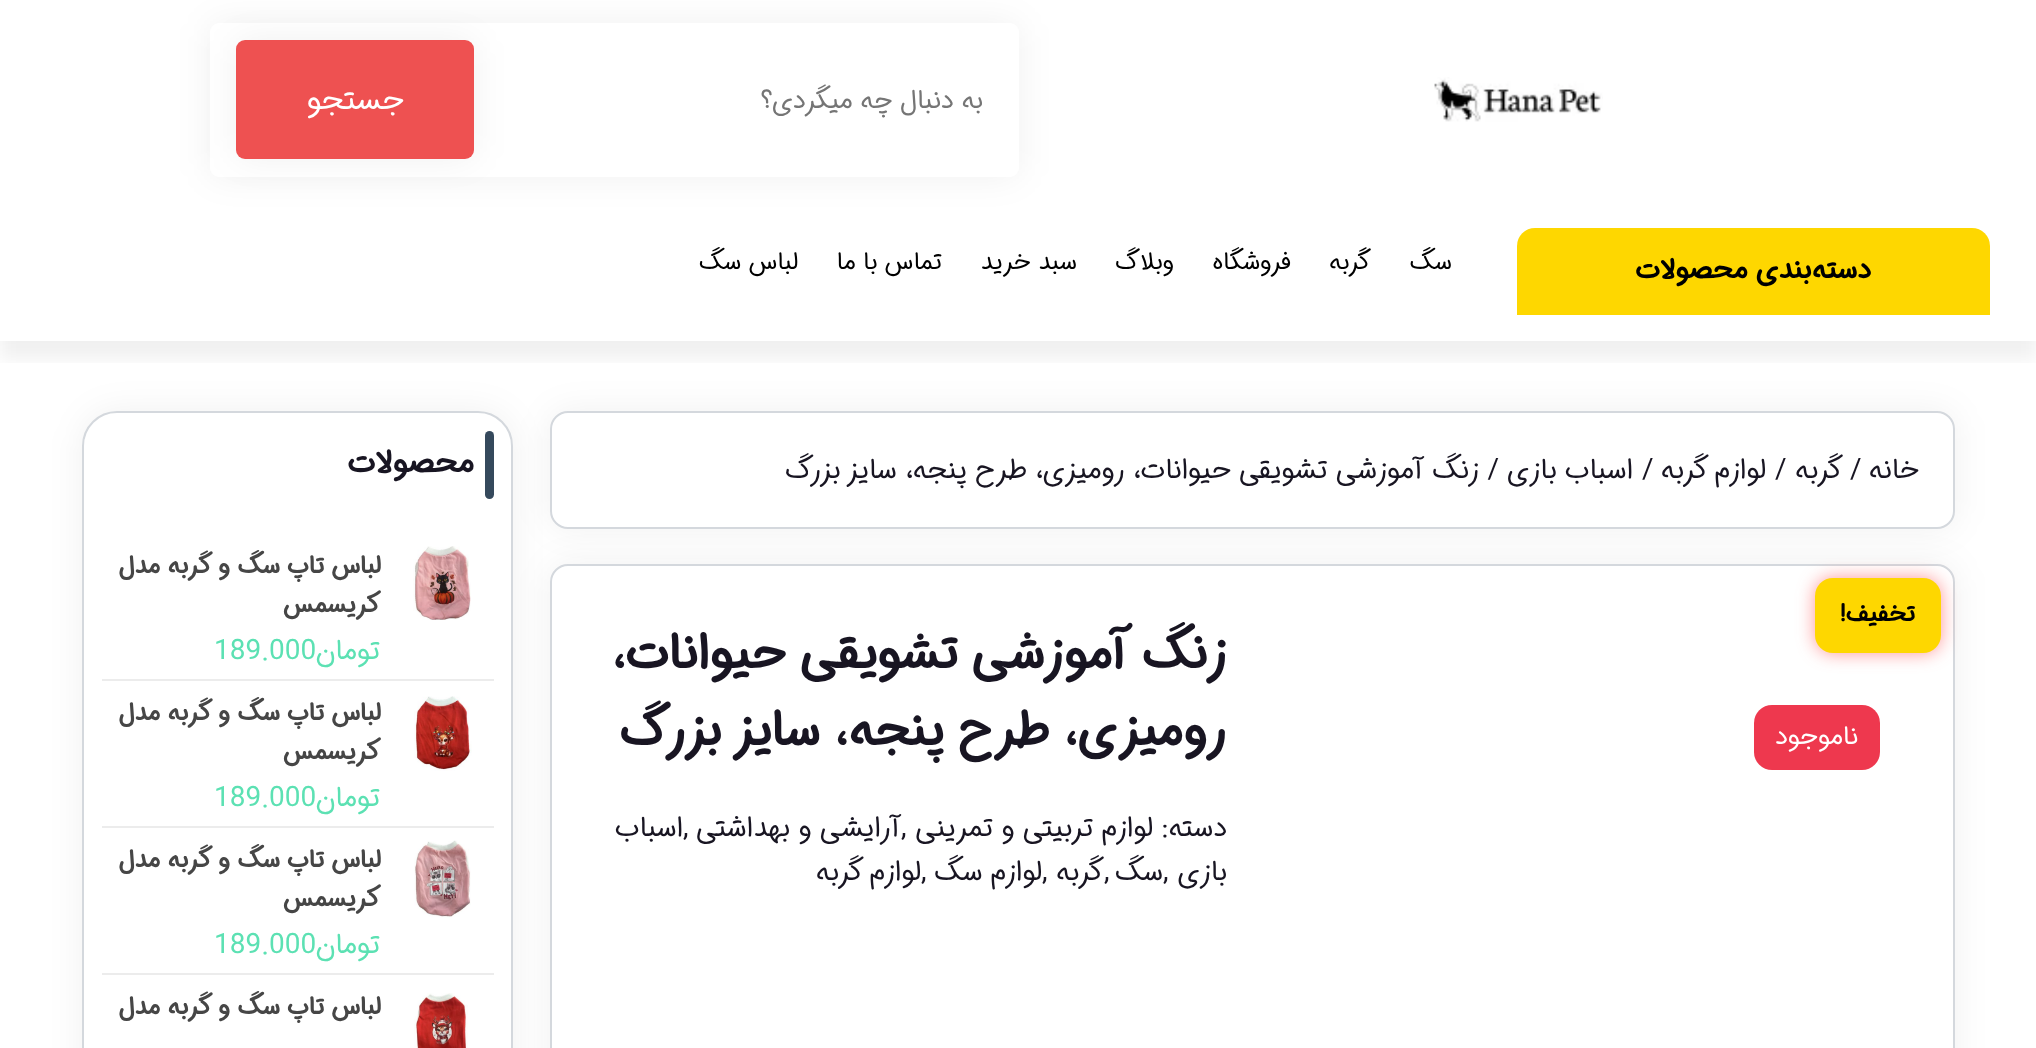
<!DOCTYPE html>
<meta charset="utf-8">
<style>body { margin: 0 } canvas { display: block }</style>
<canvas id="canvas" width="2036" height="1048"></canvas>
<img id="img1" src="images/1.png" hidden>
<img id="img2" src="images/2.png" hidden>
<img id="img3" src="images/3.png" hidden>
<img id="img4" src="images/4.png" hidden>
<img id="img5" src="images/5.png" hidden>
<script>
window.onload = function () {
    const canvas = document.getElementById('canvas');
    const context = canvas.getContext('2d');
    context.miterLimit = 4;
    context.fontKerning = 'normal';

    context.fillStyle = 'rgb(255, 255, 255)';
    context.fillRect(0, 0, 2036, 1048);
    context.drawImage(document.getElementById('img1'), 1434, 77, 169, 45);
    context.fillStyle = 'rgba(0, 0, 0, 0.06)';
    context.filter = 'blur(17.5px)';
    context.beginPath();
    context.roundRect(210, 23, 809, 154, 9);
    context.fill();
    context.filter = 'none';
    context.fillStyle = 'rgb(255, 255, 255)';
    context.beginPath();
    context.roundRect(210, 23, 809, 154, 9);
    context.fill();
    context.fillStyle = 'rgba(0, 0, 0, 0.06)';
    context.filter = 'blur(17.5px)';
    context.beginPath();
    context.roundRect(236, 40, 238, 119, 9);
    context.fill();
    context.filter = 'none';
    context.fillStyle = 'rgb(238, 81, 81)';
    context.beginPath();
    context.roundRect(236, 40, 238, 119, 9);
    context.fill();
    context.save();
    context.beginPath();
    context.rect(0, 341, 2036, 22);
    context.clip();
    context.fillStyle = 'rgba(0, 0, 0, 0.06)';
    context.filter = 'blur(9px)';
    context.beginPath();
    context.rect(0, 219, 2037, 140);
    context.fill();
    context.filter = 'none';
    context.restore();
    context.fillStyle = 'rgb(254, 215, 0)';
    context.beginPath();
    context.roundRect(1517, 228, 473, 87, [18, 18, 0, 0]);
    context.fill();
    context.fillStyle = 'rgba(0, 0, 0, 0.06)';
    context.filter = 'blur(17.5px)';
    context.beginPath();
    context.roundRect(82, 411, 431, 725, 35);
    context.fill();
    context.filter = 'none';
    context.fillStyle = 'rgb(255, 255, 255)';
    context.beginPath();
    context.roundRect(83, 412, 429, 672, 34);
    context.fill();
    context.strokeStyle = 'rgb(212, 216, 221)';
    context.lineWidth = 2;
    context.stroke();
    context.fillStyle = 'rgba(0, 0, 0, 0.06)';
    context.filter = 'blur(17.5px)';
    context.beginPath();
    context.roundRect(550, 411, 1405, 118, 18);
    context.fill();
    context.filter = 'none';
    context.fillStyle = 'rgb(255, 255, 255)';
    context.beginPath();
    context.roundRect(551, 412, 1403, 116, 17);
    context.fill();
    context.stroke();
    context.fillStyle = 'rgba(0, 0, 0, 0.06)';
    context.filter = 'blur(17.5px)';
    context.beginPath();
    context.roundRect(550, 564, 1405, 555, 18);
    context.fill();
    context.filter = 'none';
    context.fillStyle = 'rgb(255, 255, 255)';
    context.beginPath();
    context.roundRect(551, 565, 1403, 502, 17);
    context.fill();
    context.stroke();
    context.fillStyle = 'rgba(255, 68, 68, 0.56)';
    context.filter = 'blur(9px)';
    context.beginPath();
    context.roundRect(1815, 578, 126, 75, 18);
    context.fill();
    context.filter = 'none';
    context.fillStyle = 'rgb(254, 215, 0)';
    context.beginPath();
    context.roundRect(1815, 578, 126, 75, 18);
    context.fill();
    context.fillStyle = 'rgb(238, 56, 78)';
    context.beginPath();
    context.roundRect(1754, 705, 126, 65, 18);
    context.fill();
    context.fillStyle = 'rgb(53, 73, 92)';
    context.beginPath();
    context.roundRect(485, 431, 9, 68, 4.5);
    context.fill();
    context.fillStyle = 'rgb(236, 236, 236)';
    context.fillRect(102, 679, 392, 2);
    context.drawImage(document.getElementById('img2'), 413, 546, 58, 74);
    context.fillRect(102, 826, 392, 2);
    context.drawImage(document.getElementById('img3'), 414, 696, 58, 75);
    context.fillRect(102, 973, 392, 2);
    context.drawImage(document.getElementById('img4'), 414, 840, 57, 78);
    context.drawImage(document.getElementById('img5'), 414, 993, 54, 55);
    context.direction = 'rtl';
    context.font = '26.25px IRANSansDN';
    context.fillStyle = 'rgb(117, 117, 117)';
    context.fillText('به دنبال چه میگردی؟', 983, 108);
    context.font = '31.5px IRANSansDN';
    context.fillStyle = 'rgb(255, 255, 255)';
    context.fillText('جستجو', 404, 109);
    context.font = 'bold 28px IRANSansDN';
    context.fillStyle = 'rgb(0, 0, 0)';
    context.fillText('دسته‌بندی محصولات', 1872, 278);
    context.font = '24.5px IRANSansDN';
    context.fillText('سگ', 1452, 269);
    context.fillText('گربه', 1371, 269);
    context.fillText('فروشگاه', 1291, 269);
    context.fillText('وبلاگ', 1174, 269);
    context.fillText('سبد خرید', 1077, 269);
    context.fillText('تماس با ما', 942, 269);
    context.fillText('لباس سگ', 798, 269);
    context.font = '28px IRANSansDN';
    context.fillStyle = 'rgb(24, 21, 34)';
    context.fillText('خانه', 1919, 478);
    context.direction = 'ltr';
    context.fillText('/', 1850, 478);
    context.direction = 'rtl';
    context.fillText('گربه', 1843, 478);
    context.direction = 'ltr';
    context.fillText('/', 1775, 478);
    context.direction = 'rtl';
    context.fillText('لوازم گربه', 1766, 478);
    context.direction = 'ltr';
    context.fillText('/', 1642, 478);
    context.direction = 'rtl';
    context.fillText('اسباب بازی', 1633, 478);
    context.fillText('/ زنگ آموزشی تشویقی حیوانات، رومیزی، طرح پنجه، سایز بزرگ', 1499, 478);
    context.font = 'bold 24px IRANSansDN';
    context.fillStyle = 'rgb(0, 0, 0)';
    context.fillText('تخفیف!', 1915, 621);
    context.font = '26px IRANSansDN';
    context.fillStyle = 'rgb(255, 255, 255)';
    context.fillText('ناموجود', 1858, 744);
    context.font = 'bold 49px IRANSansDN';
    context.fillStyle = 'rgb(24, 21, 34)';
    context.fillText('زنگ آموزشی تشویقی حیوانات،', 1227, 668);
    context.fillText('رومیزی، طرح پنجه، سایز بزرگ', 1227, 745);
    context.font = '28px IRANSansDN';
    context.fillText('دسته:', 1227, 836);
    context.fillText('لوازم تربیتی و تمرینی', 1153, 836);
    context.direction = 'ltr';
    context.fillText(',', 901, 836);
    context.direction = 'rtl';
    context.fillText('آرایشی و بهداشتی', 901, 836);
    context.direction = 'ltr';
    context.fillText(',', 683, 836);
    context.direction = 'rtl';
    context.fillText('اسباب', 683, 836);
    context.fillText('بازی', 1227, 880);
    context.direction = 'ltr';
    context.fillText(',', 1163, 880);
    context.direction = 'rtl';
    context.fillText('سگ', 1163, 880);
    context.direction = 'ltr';
    context.fillText(',', 1104, 880);
    context.direction = 'rtl';
    context.fillText('گربه', 1104, 880);
    context.direction = 'ltr';
    context.fillText(',', 1042, 880);
    context.direction = 'rtl';
    context.fillText('لوازم سگ', 1042, 880);
    context.direction = 'ltr';
    context.fillText(',', 921, 880);
    context.direction = 'rtl';
    context.fillText('لوازم گربه', 921, 880);
    context.font = 'bold 31.5px IRANSansDN';
    context.fillText('محصولات', 474, 472);
    context.font = 'bold 24.5px IRANSansDN';
    context.fillStyle = 'rgb(70, 70, 70)';
    context.fillText('لباس تاپ سگ و گربه مدل', 381, 573);
    context.fillText('کریسمس', 381, 612);
    context.font = '28px IRANSansDN';
    context.fillStyle = 'rgb(92, 225, 179)';
    context.fillText('تومان', 380, 659);
    context.direction = 'ltr';
    context.fillText('189.000', 214, 659);
    context.direction = 'rtl';
    context.font = 'bold 24.5px IRANSansDN';
    context.fillStyle = 'rgb(70, 70, 70)';
    context.fillText('لباس تاپ سگ و گربه مدل', 381, 720);
    context.fillText('کریسمس', 381, 759);
    context.font = '28px IRANSansDN';
    context.fillStyle = 'rgb(92, 225, 179)';
    context.fillText('تومان', 380, 806);
    context.direction = 'ltr';
    context.fillText('189.000', 214, 806);
    context.direction = 'rtl';
    context.font = 'bold 24.5px IRANSansDN';
    context.fillStyle = 'rgb(70, 70, 70)';
    context.fillText('لباس تاپ سگ و گربه مدل', 381, 867);
    context.fillText('کریسمس', 381, 906);
    context.font = '28px IRANSansDN';
    context.fillStyle = 'rgb(92, 225, 179)';
    context.fillText('تومان', 380, 953);
    context.direction = 'ltr';
    context.fillText('189.000', 214, 953);
    context.direction = 'rtl';
    context.font = 'bold 24.5px IRANSansDN';
    context.fillStyle = 'rgb(70, 70, 70)';
    context.fillText('لباس تاپ سگ و گربه مدل', 381, 1014);
};
</script>
